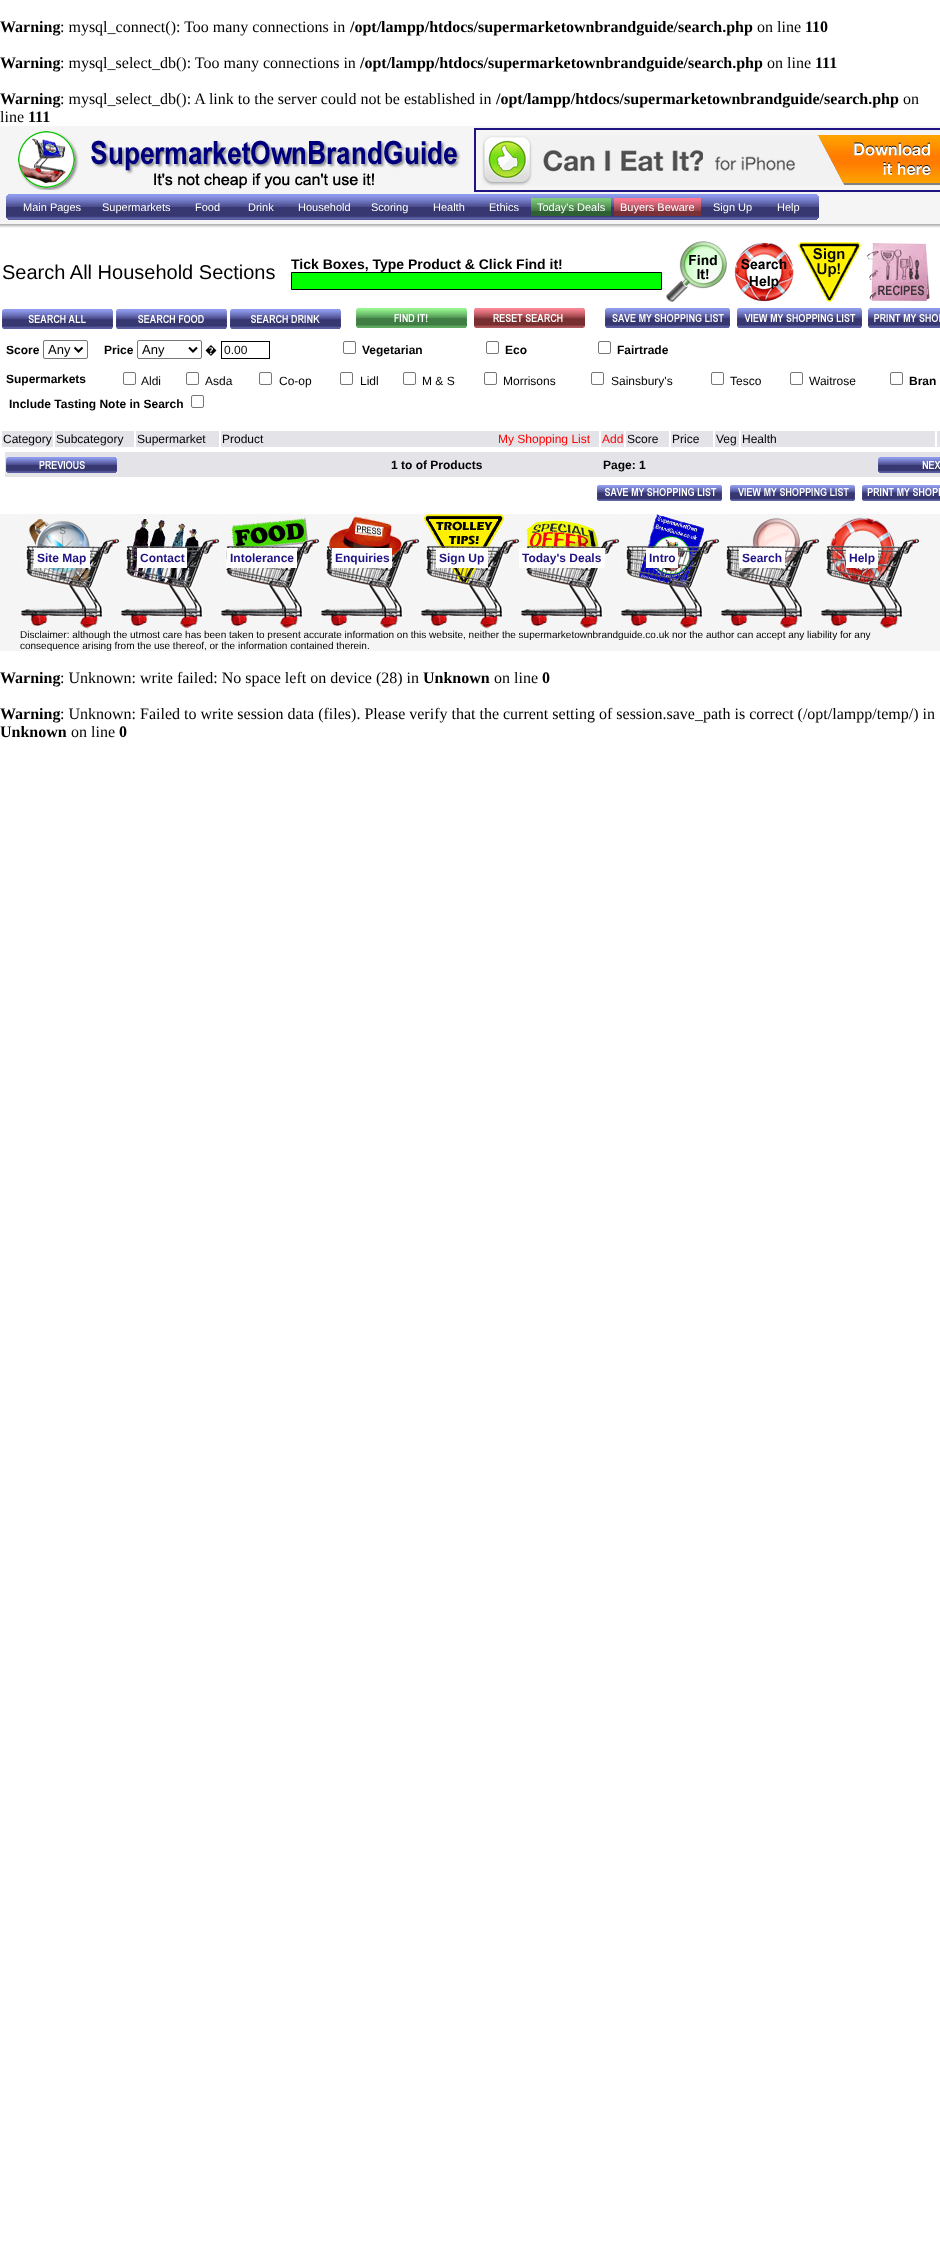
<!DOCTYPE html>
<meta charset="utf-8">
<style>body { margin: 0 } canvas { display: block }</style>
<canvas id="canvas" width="940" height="2260"></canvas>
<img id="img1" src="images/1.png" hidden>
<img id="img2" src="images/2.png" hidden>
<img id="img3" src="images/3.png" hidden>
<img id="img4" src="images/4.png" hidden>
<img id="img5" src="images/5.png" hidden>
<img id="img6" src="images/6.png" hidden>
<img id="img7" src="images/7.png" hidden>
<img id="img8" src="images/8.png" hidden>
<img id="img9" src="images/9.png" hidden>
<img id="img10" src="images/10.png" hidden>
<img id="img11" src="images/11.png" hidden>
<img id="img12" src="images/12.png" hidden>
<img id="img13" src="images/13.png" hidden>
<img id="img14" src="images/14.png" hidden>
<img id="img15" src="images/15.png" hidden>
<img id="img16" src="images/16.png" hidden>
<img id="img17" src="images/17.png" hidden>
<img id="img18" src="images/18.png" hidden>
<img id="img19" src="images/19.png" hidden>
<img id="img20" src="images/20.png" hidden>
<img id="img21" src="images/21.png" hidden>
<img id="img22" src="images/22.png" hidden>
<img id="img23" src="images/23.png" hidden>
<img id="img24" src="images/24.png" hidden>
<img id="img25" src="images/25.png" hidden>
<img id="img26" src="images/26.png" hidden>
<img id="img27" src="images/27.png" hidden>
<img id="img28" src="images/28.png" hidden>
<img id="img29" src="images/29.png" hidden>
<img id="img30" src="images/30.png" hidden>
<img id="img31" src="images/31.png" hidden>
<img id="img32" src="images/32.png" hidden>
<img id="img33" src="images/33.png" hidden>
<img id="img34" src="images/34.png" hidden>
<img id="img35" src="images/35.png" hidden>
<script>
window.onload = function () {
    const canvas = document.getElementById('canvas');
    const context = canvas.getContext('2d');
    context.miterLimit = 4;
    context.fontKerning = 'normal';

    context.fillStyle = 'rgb(255, 255, 255)';
    context.fillRect(0, 0, 940, 2260);
    context.fillStyle = 'rgb(245, 245, 245)';
    context.fillRect(0, 126, 940, 68);
    context.drawImage(document.getElementById('img1'), 18, 131, 443, 59);
    context.strokeStyle = 'rgb(31, 18, 131)';
    context.lineWidth = 2;
    context.strokeRect(475, 129, 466, 62);
    context.drawImage(document.getElementById('img2'), 482, 135, 458, 51);
    context.fillRect(0, 194, 940, 26);
    context.drawImage(document.getElementById('img3'), 6, 194, 5, 26);
    context.drawImage(document.getElementById('img4'), 11, 194, 803, 26);
    context.drawImage(document.getElementById('img5'), 531, 198, 80, 18);
    context.drawImage(document.getElementById('img6'), 614, 198, 87, 18);
    context.drawImage(document.getElementById('img7'), 814, 194, 5, 26);
    context.drawImage(document.getElementById('img8'), 0, 220, 6, 8);
    context.drawImage(document.getElementById('img9'), 6, 220, 934, 8);
    context.fillStyle = 'rgb(0, 255, 0)';
    context.beginPath();
    context.rect(291.5, 272.5, 370, 17);
    context.fill();
    context.strokeStyle = 'rgb(0, 0, 0)';
    context.lineWidth = 1;
    context.stroke();
    context.drawImage(document.getElementById('img10'), 666, 241, 61, 61);
    context.drawImage(document.getElementById('img11'), 734, 242, 60, 60);
    context.drawImage(document.getElementById('img12'), 797, 242, 65, 60);
    context.drawImage(document.getElementById('img13'), 866, 243, 64, 59);
    context.drawImage(document.getElementById('img14'), 2, 309, 111, 20);
    context.drawImage(document.getElementById('img15'), 116, 309, 111, 20);
    context.drawImage(document.getElementById('img16'), 230, 309, 111, 20);
    context.drawImage(document.getElementById('img17'), 356, 308, 111, 20);
    context.drawImage(document.getElementById('img18'), 474, 308, 111, 20);
    context.drawImage(document.getElementById('img19'), 605, 308, 125, 20);
    context.drawImage(document.getElementById('img20'), 737, 308, 125, 20);
    context.drawImage(document.getElementById('img21'), 868, 308, 72, 20);
    context.beginPath();
    context.roundRect(43.5, 340.5, 44, 18, 1.5);
    context.strokeStyle = 'rgb(118, 118, 118)';
    context.stroke();
    context.beginPath();
    context.moveTo(74.5, 347.5);
    context.lineTo(78.5, 351.5);
    context.lineTo(82.5, 347.5);
    context.strokeStyle = 'rgb(0, 0, 0)';
    context.lineWidth = 2;
    context.stroke();
    context.beginPath();
    context.roundRect(137.5, 340.5, 64, 18, 1.5);
    context.strokeStyle = 'rgb(118, 118, 118)';
    context.lineWidth = 1;
    context.stroke();
    context.beginPath();
    context.moveTo(189, 347.5);
    context.lineTo(193, 351.5);
    context.lineTo(197, 347.5);
    context.strokeStyle = 'rgb(0, 0, 0)';
    context.lineWidth = 2;
    context.stroke();
    context.lineWidth = 1;
    context.strokeRect(221.5, 341.5, 48, 17);
    context.beginPath();
    context.roundRect(343.5, 341.5, 12, 12, 1.5);
    context.strokeStyle = 'rgb(118, 118, 118)';
    context.stroke();
    context.beginPath();
    context.roundRect(486.5, 341.5, 12, 12, 1.5);
    context.stroke();
    context.beginPath();
    context.roundRect(598.5, 341.5, 12, 12, 1.5);
    context.stroke();
    context.beginPath();
    context.roundRect(123.5, 372.5, 12, 12, 1.5);
    context.stroke();
    context.beginPath();
    context.roundRect(186.5, 372.5, 12, 12, 1.5);
    context.stroke();
    context.beginPath();
    context.roundRect(259.5, 372.5, 12, 12, 1.5);
    context.stroke();
    context.beginPath();
    context.roundRect(340.5, 372.5, 12, 12, 1.5);
    context.stroke();
    context.beginPath();
    context.roundRect(403.5, 372.5, 12, 12, 1.5);
    context.stroke();
    context.beginPath();
    context.roundRect(484.5, 372.5, 12, 12, 1.5);
    context.stroke();
    context.beginPath();
    context.roundRect(591.5, 372.5, 12, 12, 1.5);
    context.stroke();
    context.beginPath();
    context.roundRect(711.5, 372.5, 12, 12, 1.5);
    context.stroke();
    context.beginPath();
    context.roundRect(790.5, 372.5, 12, 12, 1.5);
    context.stroke();
    context.beginPath();
    context.roundRect(890.5, 372.5, 12, 12, 1.5);
    context.stroke();
    context.beginPath();
    context.roundRect(191.5, 395.5, 12, 12, 1.5);
    context.stroke();
    context.fillStyle = 'rgb(227, 227, 232)';
    context.fillRect(2, 431, 51, 16);
    context.fillRect(55, 431, 79, 16);
    context.fillRect(136, 431, 83, 16);
    context.fillRect(221, 431, 378, 16);
    context.fillRect(601, 431, 23, 16);
    context.fillRect(626, 431, 43, 16);
    context.fillRect(671, 431, 42, 16);
    context.fillRect(715, 431, 24, 16);
    context.fillRect(741, 431, 194, 16);
    context.fillRect(937, 431, 3, 16);
    context.fillRect(5, 452, 935, 25);
    context.drawImage(document.getElementById('img22'), 6, 457, 111, 16);
    context.drawImage(document.getElementById('img23'), 878, 457, 62, 16);
    context.drawImage(document.getElementById('img24'), 597, 485, 125, 16);
    context.drawImage(document.getElementById('img25'), 730, 485, 125, 16);
    context.drawImage(document.getElementById('img26'), 862, 485, 78, 16);
    context.fillStyle = 'rgb(245, 245, 245)';
    context.fillRect(0, 514, 940, 137);
    context.drawImage(document.getElementById('img27'), 20, 514, 100, 115);
    context.fillStyle = 'rgb(255, 255, 255)';
    context.fillRect(34, 548, 56, 20);
    context.drawImage(document.getElementById('img28'), 120, 514, 100, 115);
    context.fillRect(137, 548, 50, 20);
    context.drawImage(document.getElementById('img29'), 220, 514, 100, 115);
    context.fillRect(227, 548, 70, 20);
    context.drawImage(document.getElementById('img30'), 320, 514, 100, 115);
    context.fillRect(332, 548, 60, 20);
    context.drawImage(document.getElementById('img31'), 420, 514, 100, 115);
    context.fillRect(436, 548, 52, 20);
    context.drawImage(document.getElementById('img32'), 520, 514, 100, 115);
    context.fillRect(519, 548, 86, 20);
    context.drawImage(document.getElementById('img33'), 620, 514, 100, 115);
    context.fillRect(646, 548, 32, 20);
    context.drawImage(document.getElementById('img34'), 720, 514, 100, 115);
    context.fillRect(739, 548, 46, 20);
    context.drawImage(document.getElementById('img35'), 820, 514, 100, 115);
    context.fillRect(846, 548, 32, 20);
    context.font = 'bold 16px Liberation Serif';
    context.fillStyle = 'rgb(0, 0, 0)';
    context.fillText('Warning', 0, 32);
    context.font = '16px Liberation Serif';
    context.fillText(': mysql_connect(): Too many connections in', 60, 32);
    context.font = 'bold 16px Liberation Serif';
    context.fillText('/opt/lampp/htdocs/supermarketownbrandguide/search.php', 350, 32);
    context.font = '16px Liberation Serif';
    context.fillText('on line', 757, 32);
    context.font = 'bold 16px Liberation Serif';
    context.fillText('110', 805, 32);
    context.fillText('Warning', 0, 68);
    context.font = '16px Liberation Serif';
    context.fillText(': mysql_select_db(): Too many connections in', 60, 68);
    context.font = 'bold 16px Liberation Serif';
    context.fillText('/opt/lampp/htdocs/supermarketownbrandguide/search.php', 360, 68);
    context.font = '16px Liberation Serif';
    context.fillText('on line', 767, 68);
    context.font = 'bold 16px Liberation Serif';
    context.fillText('111', 815, 68);
    context.fillText('Warning', 0, 104);
    context.font = '16px Liberation Serif';
    context.fillText(': mysql_select_db(): A link to the server could not be established in', 60, 104);
    context.font = 'bold 16px Liberation Serif';
    context.fillText('/opt/lampp/htdocs/supermarketownbrandguide/search.php', 496, 104);
    context.font = '16px Liberation Serif';
    context.fillText('on', 903, 104);
    context.fillText('line', 0, 122);
    context.font = 'bold 16px Liberation Serif';
    context.fillText('111', 28, 122);
    context.font = '11px Liberation Sans';
    context.fillStyle = 'rgb(255, 255, 255)';
    context.fillText('Main Pages', 23, 211);
    context.fillText('Supermarkets', 102, 211);
    context.fillText('Food', 195, 211);
    context.fillText('Drink', 248, 211);
    context.fillText('Household', 298, 211);
    context.fillText('Scoring', 371, 211);
    context.fillText('Health', 433, 211);
    context.fillText('Ethics', 489, 211);
    context.fillText('Today\'s Deals', 537, 211);
    context.fillText('Buyers Beware', 620, 211);
    context.fillText('Sign Up', 713, 211);
    context.fillText('Help', 777, 211);
    context.font = '20px Liberation Sans';
    context.fillStyle = 'rgb(0, 0, 0)';
    context.fillText('Search All Household Sections', 2, 279);
    context.font = 'bold 14px Liberation Sans';
    context.fillText('Tick Boxes, Type Product & Click Find it!', 291, 269);
    context.font = 'bold 12px Liberation Sans';
    context.fillText('Score', 6, 354);
    context.font = '13px Liberation Sans';
    context.fillText('Any', 48, 354);
    context.font = 'bold 12px Liberation Sans';
    context.fillText('Price', 104, 354);
    context.font = '13px Liberation Sans';
    context.fillText('Any', 142, 354);
    context.font = 'bold 12px Noto Sans';
    context.fillText('�', 205, 354);
    context.font = '12px Liberation Sans';
    context.fillText('0.00', 224, 354);
    context.font = 'bold 12px Liberation Sans';
    context.fillText('Vegetarian', 362, 354);
    context.fillText('Eco', 505, 354);
    context.fillText('Fairtrade', 617, 354);
    context.fillText('Supermarkets', 6, 383);
    context.font = '12px Liberation Sans';
    context.fillText('Aldi', 141, 385);
    context.fillText('Asda', 205, 385);
    context.fillText('Co-op', 279, 385);
    context.fillText('Lidl', 360, 385);
    context.fillText('M & S', 422, 385);
    context.fillText('Morrisons', 503, 385);
    context.fillText('Sainsbury\'s', 611, 385);
    context.fillText('Tesco', 730, 385);
    context.fillText('Waitrose', 809, 385);
    context.font = 'bold 12px Liberation Sans';
    context.fillText('Bran', 909, 385);
    context.fillText('Include Tasting Note in Search', 9, 408);
    context.font = '12px Liberation Sans';
    context.fillText('Category', 3, 443);
    context.fillText('Subcategory', 56, 443);
    context.fillText('Supermarket', 137, 443);
    context.fillText('Product', 222, 443);
    context.fillStyle = 'rgb(255, 0, 0)';
    context.fillText('My Shopping List', 498, 443);
    context.fillText('Add', 602, 443);
    context.fillStyle = 'rgb(0, 0, 0)';
    context.fillText('Score', 627, 443);
    context.fillText('Price', 672, 443);
    context.fillText('Veg', 716, 443);
    context.fillText('Health', 742, 443);
    context.font = 'bold 12px Liberation Sans';
    context.fillText('1 to of Products', 391, 469);
    context.fillText('Page: 1', 603, 469);
    context.fillStyle = 'rgb(31, 18, 131)';
    context.fillText('Site Map', 37, 562);
    context.fillText('Contact', 140, 562);
    context.fillText('Intolerance', 230, 562);
    context.fillText('Enquiries', 335, 562);
    context.fillText('Sign Up', 439, 562);
    context.fillText('Today\'s Deals', 522, 562);
    context.fillText('Intro', 649, 562);
    context.fillText('Search', 742, 562);
    context.fillText('Help', 849, 562);
    context.font = '10px Liberation Sans';
    context.fillStyle = 'rgb(0, 0, 0)';
    context.fillText('Disclaimer: although the utmost care has been taken to present accurate information on this website, neither the supermarketownbrandguide.co.uk nor the author can accept any liability for any', 20, 638);
    context.fillText('consequence arising from the use thereof, or the information contained therein.', 20, 649);
    context.font = 'bold 16px Liberation Serif';
    context.fillText('Warning', 0, 683);
    context.font = '16px Liberation Serif';
    context.fillText(': Unknown: write failed: No space left on device (28) in', 60, 683);
    context.font = 'bold 16px Liberation Serif';
    context.fillText('Unknown', 423, 683);
    context.font = '16px Liberation Serif';
    context.fillText('on line', 494, 683);
    context.font = 'bold 16px Liberation Serif';
    context.fillText('0', 542, 683);
    context.fillText('Warning', 0, 719);
    context.font = '16px Liberation Serif';
    context.fillText(': Unknown: Failed to write session data (files). Please verify that the current setting of session.save_path is correct (/opt/lampp/temp/) in', 60, 719);
    context.font = 'bold 16px Liberation Serif';
    context.fillText('Unknown', 0, 737);
    context.font = '16px Liberation Serif';
    context.fillText('on line', 71, 737);
    context.font = 'bold 16px Liberation Serif';
    context.fillText('0', 119, 737);
};
</script>
